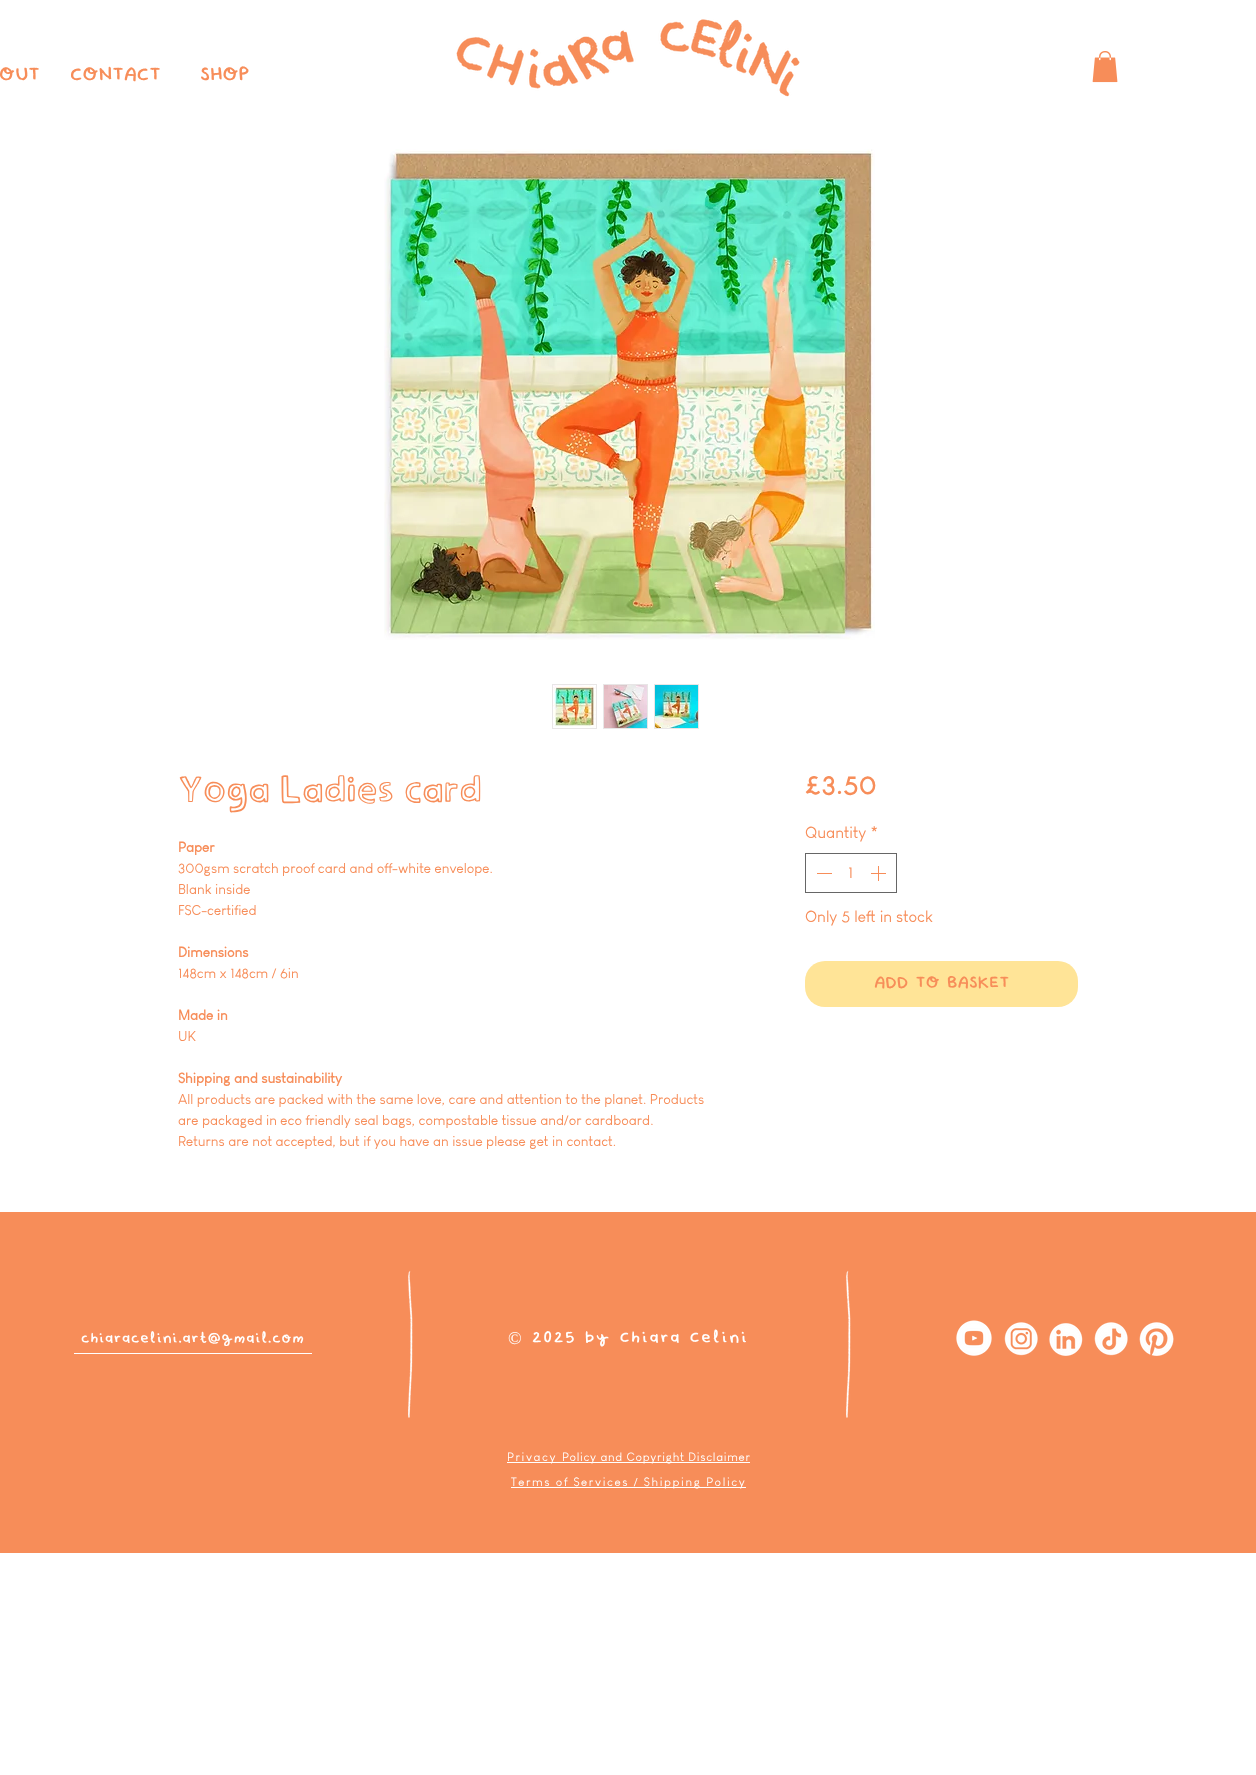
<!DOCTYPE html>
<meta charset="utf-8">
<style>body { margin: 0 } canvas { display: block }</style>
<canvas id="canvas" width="1256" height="1775"></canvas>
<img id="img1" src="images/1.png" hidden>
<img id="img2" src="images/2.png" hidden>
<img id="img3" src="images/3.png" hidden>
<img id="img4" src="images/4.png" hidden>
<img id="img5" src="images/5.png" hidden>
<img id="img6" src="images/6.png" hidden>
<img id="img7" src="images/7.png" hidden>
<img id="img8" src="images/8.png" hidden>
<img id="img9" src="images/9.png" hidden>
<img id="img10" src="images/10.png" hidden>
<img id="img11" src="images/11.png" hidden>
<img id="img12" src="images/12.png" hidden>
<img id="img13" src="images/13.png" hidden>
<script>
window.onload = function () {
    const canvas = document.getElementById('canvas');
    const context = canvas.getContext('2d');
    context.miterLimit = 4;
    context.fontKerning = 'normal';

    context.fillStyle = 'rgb(255, 255, 255)';
    context.fillRect(0, 0, 1256, 1775);
    context.drawImage(document.getElementById('img1'), 456, 19, 344, 78);
    context.drawImage(document.getElementById('img2'), 1092, 51, 26, 32);
    context.drawImage(document.getElementById('img3'), 384, 149, 491, 491);
    context.fillStyle = 'rgb(232, 230, 230)';
    context.fillRect(552, 684, 45, 45);
    context.drawImage(document.getElementById('img4'), 553, 685, 43, 43);
    context.fillRect(603, 684, 45, 45);
    context.drawImage(document.getElementById('img5'), 604, 685, 43, 43);
    context.fillRect(654, 684, 45, 45);
    context.drawImage(document.getElementById('img6'), 655, 685, 43, 43);
    context.strokeStyle = 'rgb(102, 102, 102)';
    context.strokeRect(805.5, 853.5, 91, 39);
    context.fillStyle = 'rgb(247, 141, 89)';
    context.fillRect(817, 873, 15, 1);
    context.drawImage(document.getElementById('img7'), 871, 866, 15, 15);
    context.fillStyle = 'rgb(255, 228, 151)';
    context.beginPath();
    context.roundRect(805, 961, 273, 46, 20);
    context.fill();
    context.fillStyle = 'rgb(247, 141, 89)';
    context.fillRect(0, 1212, 1256, 341);
    context.fillStyle = 'rgb(255, 255, 255)';
    context.fillRect(74, 1353, 238, 1);
    context.drawImage(document.getElementById('img8'), 408, 1270, 5, 148);
    context.drawImage(document.getElementById('img8'), 846, 1270, 5, 148);
    context.drawImage(document.getElementById('img9'), 956, 1320, 36, 36);
    context.drawImage(document.getElementById('img10'), 1004, 1322, 34, 34);
    context.drawImage(document.getElementById('img11'), 1049, 1323, 34, 33);
    context.drawImage(document.getElementById('img12'), 1094, 1322, 34, 34);
    context.drawImage(document.getElementById('img13'), 1139, 1322, 35, 34);
    context.fillRect(507, 1462, 243, 1);
    context.fillRect(511, 1487, 235, 1);
    context.font = '23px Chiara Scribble';
    context.fillStyle = 'rgb(247, 141, 89)';
    context.fillText('OUT', -1, 83);
    context.fillText('CONTACT', 70, 83);
    context.fillText('SHOP', 200, 83);
    context.font = '40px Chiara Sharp';
    context.fillText('Yoga Ladies card', 178, 805);
    context.font = 'bold 14px "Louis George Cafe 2"';
    context.fillText('Paper', 178, 852);
    context.font = '14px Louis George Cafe';
    context.fillText('300gsm scratch proof card and off-white envelope.', 178, 873);
    context.fillText('Blank inside', 178, 894);
    context.fillText('FSC-certified', 178, 915);
    context.font = 'bold 14px "Louis George Cafe 2"';
    context.fillText('Dimensions', 178, 957);
    context.font = '14px Louis George Cafe';
    context.fillText('148cm x 148cm / 6in²', 178, 978);
    context.font = 'bold 14px "Louis George Cafe 2"';
    context.fillText('Made in', 178, 1020);
    context.font = '14px Louis George Cafe';
    context.fillText('UK', 178, 1041);
    context.font = 'bold 14px "Louis George Cafe 2"';
    context.fillText('Shipping and sustainability', 178, 1083);
    context.font = '14px Louis George Cafe';
    context.fillText('All products are packed with the same love, care and attention to the planet. Products', 178, 1104);
    context.fillText('are packaged in eco friendly seal bags, compostable tissue and/or cardboard.', 178, 1125);
    context.fillText('Returns are not accepted, but if you have an issue please get in contact.', 178, 1146);
    context.font = 'bold 26px Louis George Cafe';
    context.fillText('£3.50', 805, 794);
    context.font = '16px Louis George Cafe';
    context.fillText('Quantity *', 805, 838);
    context.fillText('1', 848, 878);
    context.fillText('Only 5 left in stock', 805, 922);
    context.font = '20px Chiara Scribble';
    context.fillText('ADD TO BASKET', 874, 990);
    context.letterSpacing = '0.8px';
    context.font = '16px Chiara Scribble';
    context.fillStyle = 'rgb(255, 255, 255)';
    context.fillText('chiaracelini.art@gmail.com', 81, 1344);
    context.letterSpacing = '1.8px';
    context.font = '18px Liberation Serif';
    context.fillText('©', 508, 1344);
    context.font = '18px Chiara Scribble';
    context.fillText('2025 by Chiara Celini', 532, 1344);
    context.letterSpacing = '1.6px';
    context.font = '12px Louis George Cafe';
    context.fillText('Privacy', 507, 1461);
    context.letterSpacing = '0.7px';
    context.fillText('Policy and Copyright Disclaimer', 562, 1461);
    context.letterSpacing = '1.6px';
    context.fillText('Terms of Services / Shipping Policy', 511, 1486);
};
</script>
